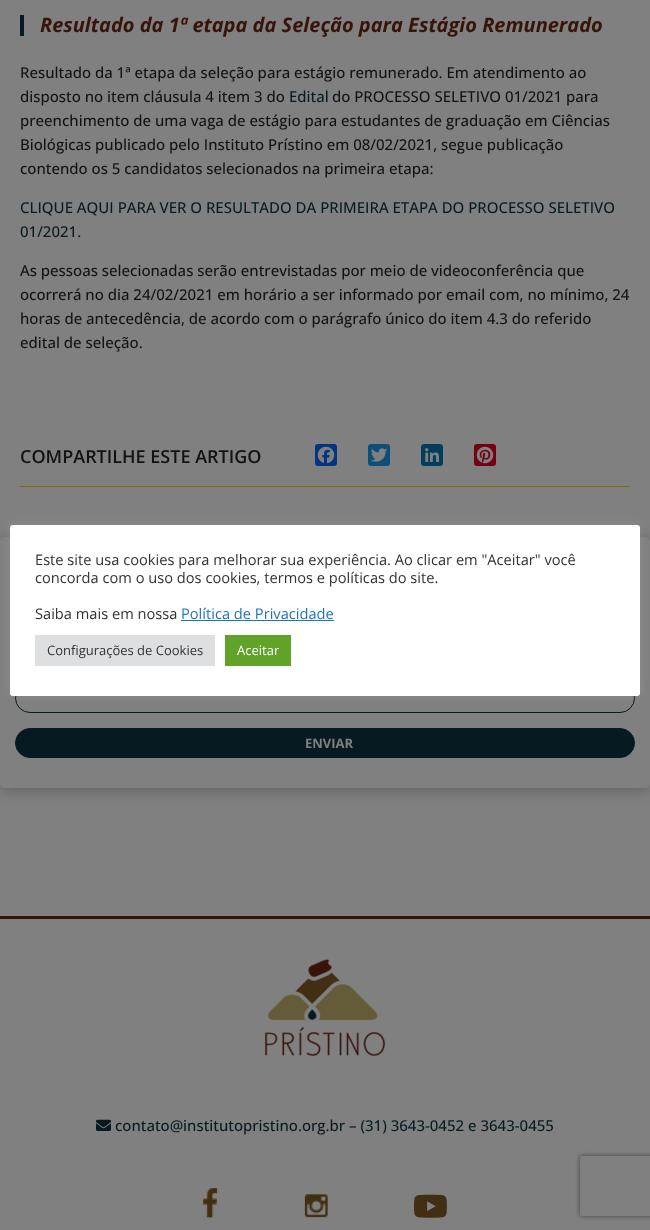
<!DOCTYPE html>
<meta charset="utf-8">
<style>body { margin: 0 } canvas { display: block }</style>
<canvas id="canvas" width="650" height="1230"></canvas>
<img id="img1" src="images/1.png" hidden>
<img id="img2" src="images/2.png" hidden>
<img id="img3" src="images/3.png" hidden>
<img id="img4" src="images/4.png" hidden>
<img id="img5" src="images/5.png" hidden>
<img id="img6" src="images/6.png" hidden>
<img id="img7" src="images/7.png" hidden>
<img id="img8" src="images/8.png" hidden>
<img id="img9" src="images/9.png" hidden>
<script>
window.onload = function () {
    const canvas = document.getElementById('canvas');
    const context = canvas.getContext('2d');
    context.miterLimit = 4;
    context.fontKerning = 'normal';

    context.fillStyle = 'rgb(128, 128, 128)';
    context.fillRect(0, 0, 650, 1230);
    context.fillStyle = 'rgb(6, 27, 33)';
    context.fillRect(20, 15, 4, 21);
    context.fillStyle = 'rgb(128, 106, 16)';
    context.fillRect(20, 486, 610, 1);
    context.fillStyle = 'rgb(4, 51, 128)';
    context.beginPath();
    context.roundRect(315, 444, 22, 22, 3);
    context.fill();
    context.drawImage(document.getElementById('img1'), 317, 446, 18, 18);
    context.fillStyle = 'rgb(15, 78, 120)';
    context.beginPath();
    context.roundRect(368, 444, 22, 22, 3);
    context.fill();
    context.drawImage(document.getElementById('img2'), 371, 448, 16, 14);
    context.fillStyle = 'rgb(0, 62, 91)';
    context.beginPath();
    context.roundRect(421, 444, 22, 22, 3);
    context.fill();
    context.drawImage(document.getElementById('img3'), 425, 448, 14, 14);
    context.fillStyle = 'rgb(115, 0, 18)';
    context.beginPath();
    context.roundRect(474, 444, 22, 22, 3);
    context.fill();
    context.drawImage(document.getElementById('img4'), 476, 446, 18, 18);
    context.save();
    context.beginPath();
    context.moveTo(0, 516);
    context.lineTo(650, 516);
    context.lineTo(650, 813);
    context.lineTo(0, 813);
    context.closePath();
    context.moveTo(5, 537);
    context.lineTo(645, 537);
    context.bezierCurveTo(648, 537, 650, 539, 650, 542);
    context.lineTo(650, 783);
    context.bezierCurveTo(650, 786, 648, 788, 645, 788);
    context.lineTo(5, 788);
    context.bezierCurveTo(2, 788, 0, 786, 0, 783);
    context.lineTo(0, 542);
    context.bezierCurveTo(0, 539, 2, 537, 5, 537);
    context.closePath();
    context.clip('evenodd');
    context.fillStyle = 'rgba(0, 0, 0, 0.3)';
    context.filter = 'blur(7.5px)';
    context.beginPath();
    context.roundRect(1, 540, 648, 249, 4);
    context.fill();
    context.filter = 'none';
    context.restore();
    context.beginPath();
    context.roundRect(15.5, 683.5, 619, 29, 14.5);
    context.strokeStyle = 'rgb(6, 27, 33)';
    context.stroke();
    context.fillStyle = 'rgb(6, 27, 33)';
    context.beginPath();
    context.roundRect(15.5, 728.5, 619, 29, 14.5);
    context.fill();
    context.stroke();
    context.fillStyle = 'rgb(55, 20, 9)';
    context.fillRect(0, 916, 650, 3);
    context.drawImage(document.getElementById('img5'), 265, 959, 120, 97);
    context.drawImage(document.getElementById('img6'), 96, 1119, 15, 12);
    context.drawImage(document.getElementById('img7'), 203, 1188, 15, 30);
    context.drawImage(document.getElementById('img8'), 304, 1194, 24, 24);
    context.drawImage(document.getElementById('img9'), 413, 1194, 34, 24);
    context.fillStyle = 'rgba(172, 171, 171, 0.3)';
    context.filter = 'blur(5px)';
    context.beginPath();
    context.roundRect(10, 524, 630, 171, 3);
    context.fill();
    context.filter = 'none';
    context.fillStyle = 'rgb(255, 255, 255)';
    context.beginPath();
    context.roundRect(10, 525, 630, 171, 3);
    context.fill();
    context.fillStyle = 'rgb(30, 115, 190)';
    context.fillRect(181, 620, 153, 1);
    context.fillStyle = 'rgb(222, 223, 224)';
    context.fillRect(35, 635, 180, 31);
    context.fillStyle = 'rgb(97, 162, 41)';
    context.fillRect(225, 635, 66, 31);
    context.save();
    context.beginPath();
    context.moveTo(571, 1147);
    context.lineTo(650, 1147);
    context.lineTo(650, 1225);
    context.lineTo(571, 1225);
    context.closePath();
    context.moveTo(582, 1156);
    context.lineTo(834, 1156);
    context.bezierCurveTo(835, 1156, 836, 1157, 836, 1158);
    context.lineTo(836, 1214);
    context.bezierCurveTo(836, 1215, 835, 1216, 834, 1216);
    context.lineTo(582, 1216);
    context.bezierCurveTo(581, 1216, 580, 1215, 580, 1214);
    context.lineTo(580, 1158);
    context.bezierCurveTo(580, 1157, 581, 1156, 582, 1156);
    context.closePath();
    context.clip('evenodd');
    context.fillStyle = 'rgb(64, 64, 64)';
    context.filter = 'blur(2.5px)';
    context.beginPath();
    context.roundRect(580, 1156, 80, 60, 2);
    context.fill();
    context.filter = 'none';
    context.restore();
    context.font = 'italic bold 20px Open Sans';
    context.fillStyle = 'rgb(55, 20, 9)';
    context.fillText('Resultado da 1ª etapa da Seleção para Estágio Remunerado', 40, 32);
    context.font = '500 15px Open Sans';
    context.fillStyle = 'rgb(17, 18, 18)';
    context.fillText('Resultado da 1ª etapa da seleção para estágio remunerado. Em atendimento ao', 20, 78);
    context.fillText('disposto no item cláusula 4 item 3 do', 20, 102);
    context.fillStyle = 'rgb(6, 27, 33)';
    context.fillText('Edital', 289, 102);
    context.fillStyle = 'rgb(17, 18, 18)';
    context.fillText('do PROCESSO SELETIVO 01/2021 para', 332, 102);
    context.fillText('preenchimento de uma vaga de estágio para estudantes de graduação em Ciências', 20, 126);
    context.fillText('Biológicas publicado pelo Instituto Prístino em 08/02/2021, segue publicação', 20, 150);
    context.fillText('contendo os 5 candidatos selecionados na primeira etapa:', 20, 174);
    context.fillStyle = 'rgb(6, 27, 33)';
    context.fillText('CLIQUE AQUI PARA VER O RESULTADO DA PRIMEIRA ETAPA DO PROCESSO SELETIVO', 20, 213);
    context.fillText('01/2021.', 20, 237);
    context.fillStyle = 'rgb(17, 18, 18)';
    context.fillText('As pessoas selecionadas serão entrevistadas por meio de videoconferência que', 20, 276);
    context.fillText('ocorrerá no dia 24/02/2021 em horário a ser informado por email com, no mínimo, 24', 20, 300);
    context.fillText('horas de antecedência, de acordo com o parágrafo único do item 4.3 do referido', 20, 324);
    context.fillText('edital de seleção.', 20, 348);
    context.font = '600 18px Open Sans';
    context.fillText('COMPARTILHE ESTE ARTIGO', 20, 463);
    context.font = 'bold 13px Open Sans';
    context.fillStyle = 'rgb(128, 128, 128)';
    context.fillText('ENVIAR', 305, 748);
    context.font = '500 15px Open Sans';
    context.fillStyle = 'rgb(6, 27, 33)';
    context.fillText('contato@institutopristino.org.br – (31) 3643-0452 e 3643-0455', 115, 1131);
    context.font = '14.65px Open Sans';
    context.fillStyle = 'rgb(51, 51, 51)';
    context.fillText('Este site usa cookies para melhorar sua experiência. Ao clicar em "Aceitar" você', 35, 565);
    context.fillText('concorda com o uso dos cookies, termos e políticas do site.', 35, 583);
    context.fillText('Saiba mais em nossa', 35, 619);
    context.fillStyle = 'rgb(30, 115, 190)';
    context.fillText('Política de Privacidade', 181, 619);
    context.font = '13px Open Sans';
    context.fillStyle = 'rgb(51, 51, 51)';
    context.fillText('Configurações de Cookies', 47, 655);
    context.fillStyle = 'rgb(255, 255, 255)';
    context.fillText('Aceitar', 237, 655);
};
</script>
